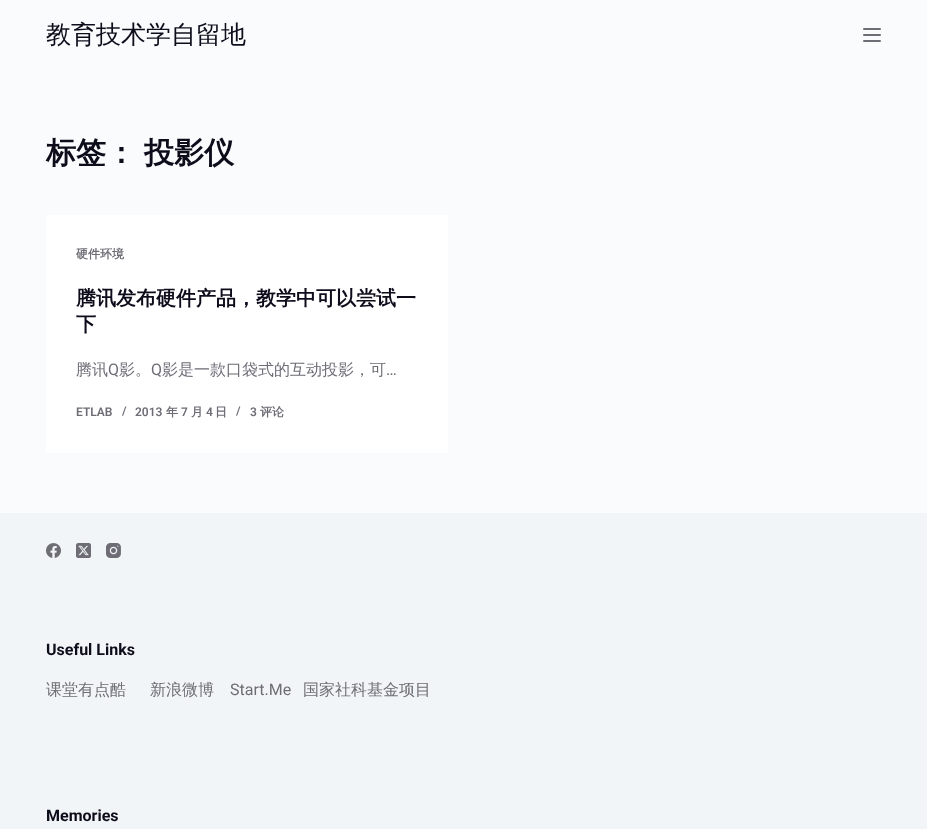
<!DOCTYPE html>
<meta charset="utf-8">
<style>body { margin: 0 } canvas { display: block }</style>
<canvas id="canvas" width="927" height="829"></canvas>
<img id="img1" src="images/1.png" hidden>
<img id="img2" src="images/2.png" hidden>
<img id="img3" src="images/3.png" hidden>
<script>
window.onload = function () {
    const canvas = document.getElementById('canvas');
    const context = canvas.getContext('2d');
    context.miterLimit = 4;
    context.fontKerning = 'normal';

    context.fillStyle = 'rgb(250, 251, 252)';
    context.fillRect(0, 0, 927, 829);
    context.fillStyle = 'rgb(110, 109, 118)';
    context.beginPath();
    context.roundRect(863, 28, 18, 2, 1);
    context.fill();
    context.beginPath();
    context.roundRect(863, 34, 18, 2, 1);
    context.fill();
    context.beginPath();
    context.roundRect(863, 40, 18, 2, 1);
    context.fill();
    context.fillStyle = 'rgb(255, 255, 255)';
    context.fillRect(46, 215, 402, 238);
    context.fillStyle = 'rgb(242, 245, 247)';
    context.fillRect(0, 513, 927, 316);
    context.drawImage(document.getElementById('img1'), 46, 543, 15, 15);
    context.drawImage(document.getElementById('img2'), 76, 543, 15, 15);
    context.drawImage(document.getElementById('img3'), 106, 543, 15, 15);
    context.font = '500 25px WenQuanYi Zen Hei';
    context.fillStyle = 'rgb(14, 12, 27)';
    context.fillText('教育技术学自留地', 46, 43);
    context.font = 'bold 30px WenQuanYi Zen Hei';
    context.fillText('标签：', 46, 163);
    context.fillText('投影仪', 144, 163);
    context.font = 'bold 12px WenQuanYi Zen Hei';
    context.fillStyle = 'rgb(110, 109, 118)';
    context.fillText('硬件环境', 76, 258);
    context.font = 'bold 20px WenQuanYi Zen Hei';
    context.fillStyle = 'rgb(14, 12, 27)';
    context.fillText('腾讯发布硬件产品，教学中可以尝试一', 76, 305);
    context.fillText('下', 76, 331);
    context.font = '500 16px WenQuanYi Zen Hei';
    context.fillStyle = 'rgb(110, 109, 118)';
    context.fillText('腾讯', 76, 375);
    context.font = '16px Roboto';
    context.fillText('Q', 108, 375);
    context.font = '500 16px WenQuanYi Zen Hei';
    context.fillText('影。', 119, 375);
    context.font = '16px Roboto';
    context.fillText('Q', 151, 375);
    context.font = '500 16px WenQuanYi Zen Hei';
    context.fillText('影是一款口袋式的互动投影，可', 162, 375);
    context.font = '16px Roboto';
    context.fillText('…', 386, 375);
    context.font = '600 12px Roboto';
    context.fillText('ETLAB', 76, 416);
    context.fillText('/', 122, 415);
    context.fillText('2013', 135, 416);
    context.font = 'bold 12px WenQuanYi Zen Hei';
    context.fillText('年', 166, 416);
    context.font = '600 12px Roboto';
    context.fillText('7', 181, 416);
    context.font = 'bold 12px WenQuanYi Zen Hei';
    context.fillText('月', 191, 416);
    context.font = '600 12px Roboto';
    context.fillText('4', 206, 416);
    context.font = 'bold 12px WenQuanYi Zen Hei';
    context.fillText('日', 215, 416);
    context.font = '600 12px Roboto';
    context.fillText('/', 236, 415);
    context.fillText('3', 250, 416);
    context.font = 'bold 12px WenQuanYi Zen Hei';
    context.fillText('评论', 260, 416);
    context.font = 'bold 16px Roboto';
    context.fillStyle = 'rgb(14, 12, 27)';
    context.fillText('Useful Links', 46, 655);
    context.font = '500 16px WenQuanYi Zen Hei';
    context.fillStyle = 'rgb(110, 109, 118)';
    context.fillText('课堂有点酷', 46, 695);
    context.fillText('新浪微博', 150, 695);
    context.font = '16px Roboto';
    context.fillText('Start.Me', 230, 695);
    context.font = '500 16px WenQuanYi Zen Hei';
    context.fillText('国家社科基金项目', 303, 695);
    context.font = 'bold 16px Roboto';
    context.fillStyle = 'rgb(14, 12, 27)';
    context.fillText('Memories', 46, 821);
};
</script>
